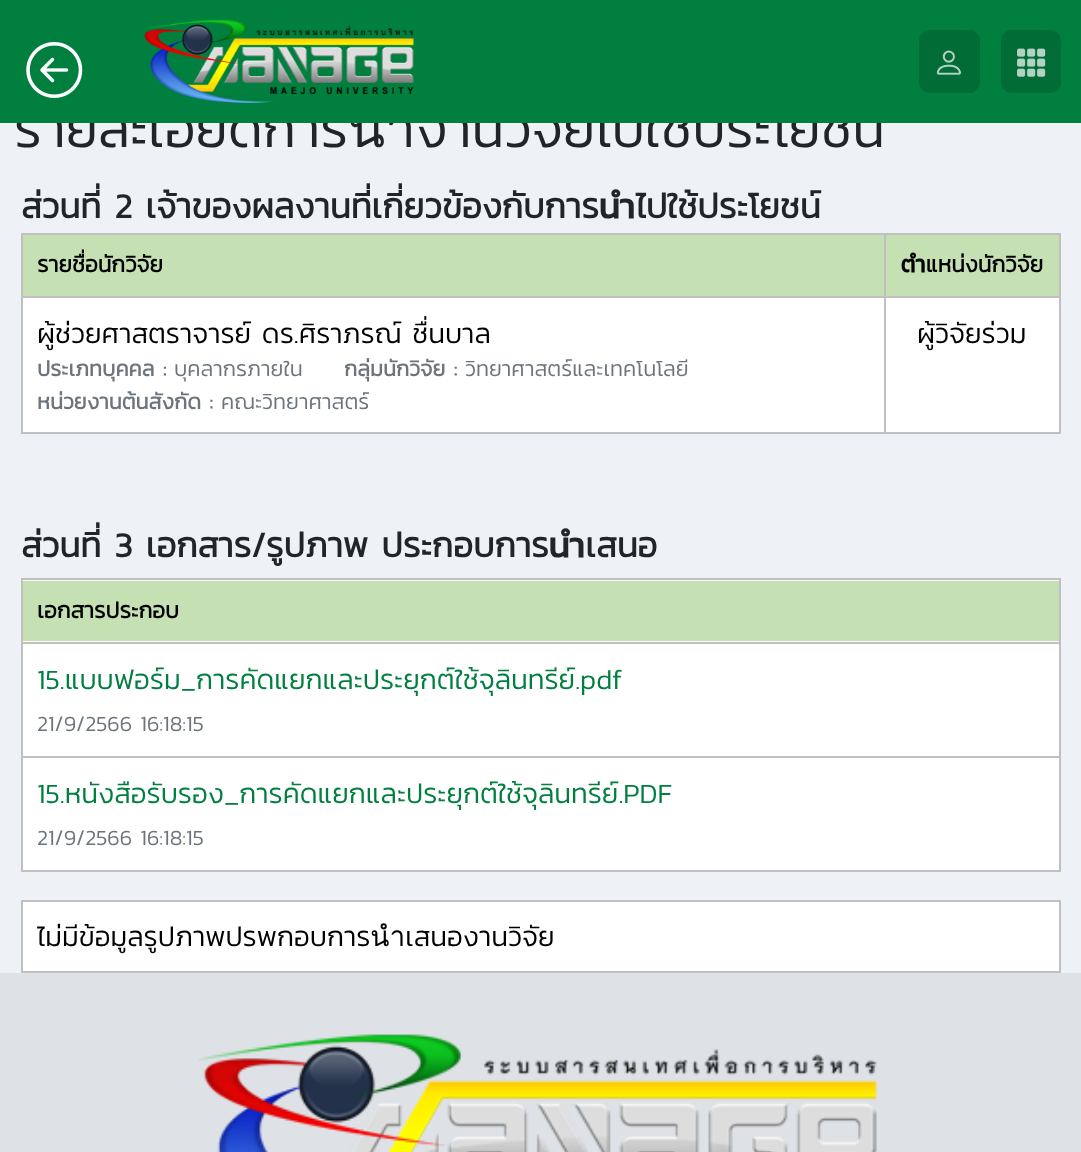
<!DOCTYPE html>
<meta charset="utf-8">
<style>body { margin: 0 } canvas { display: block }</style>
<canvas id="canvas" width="1081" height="1152"></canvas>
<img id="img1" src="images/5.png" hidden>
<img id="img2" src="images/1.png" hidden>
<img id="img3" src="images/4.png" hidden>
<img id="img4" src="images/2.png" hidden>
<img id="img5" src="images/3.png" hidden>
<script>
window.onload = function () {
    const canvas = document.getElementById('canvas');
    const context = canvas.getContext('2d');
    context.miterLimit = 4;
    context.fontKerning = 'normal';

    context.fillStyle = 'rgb(238, 241, 246)';
    context.fillRect(0, 0, 1081, 1152);
    context.fillStyle = 'rgb(255, 255, 255)';
    context.fillRect(23, 298, 1036, 134);
    context.fillStyle = 'rgb(197, 224, 179)';
    context.fillRect(23, 235, 1036, 61);
    context.fillStyle = 'rgb(192, 192, 192)';
    context.fillRect(884, 233, 177, 2);
    context.fillRect(884, 296, 177, 2);
    context.fillRect(1059, 296, 2, 138);
    context.fillRect(884, 432, 177, 2);
    context.fillRect(884, 296, 2, 138);
    context.fillRect(21, 296, 865, 2);
    context.fillRect(884, 233, 2, 65);
    context.fillRect(21, 233, 865, 2);
    context.fillRect(21, 432, 865, 2);
    context.fillRect(21, 296, 2, 138);
    context.fillRect(21, 233, 2, 65);
    context.fillRect(1059, 233, 2, 65);
    context.fillStyle = 'rgb(255, 255, 255)';
    context.fillRect(23, 580, 1036, 290);
    context.fillStyle = 'rgb(197, 224, 179)';
    context.fillRect(23, 581, 1036, 60);
    context.fillStyle = 'rgb(192, 192, 192)';
    context.fillRect(21, 578, 1040, 2);
    context.fillRect(21, 642, 1040, 2);
    context.fillRect(21, 756, 1040, 2);
    context.fillRect(1059, 756, 2, 116);
    context.fillRect(1059, 642, 2, 116);
    context.fillRect(1059, 578, 2, 66);
    context.fillRect(21, 870, 1040, 2);
    context.fillRect(21, 756, 2, 116);
    context.fillRect(21, 642, 2, 116);
    context.fillRect(21, 578, 2, 66);
    context.fillStyle = 'rgb(255, 255, 255)';
    context.fillRect(23, 902, 1036, 69);
    context.fillStyle = 'rgb(192, 192, 192)';
    context.fillRect(21, 900, 1040, 2);
    context.fillRect(1059, 900, 2, 73);
    context.fillRect(21, 971, 1040, 2);
    context.fillRect(21, 900, 2, 73);
    context.fillStyle = 'rgb(222, 226, 230)';
    context.fillRect(0, 973, 1081, 179);
    context.drawImage(document.getElementById('img1'), 198, 1034, 679, 118);
    context.font = '300 54.75px Kanit';
    context.fillStyle = 'rgb(33, 37, 41)';
    context.fillText('รายละเอียดการนำงานวิจัยไปใช้ประโยชน์', 14, 147);
    context.fillStyle = 'rgb(1, 127, 63)';
    context.fillRect(0, 0, 1081, 123);
    context.drawImage(document.getElementById('img2'), 26, 42, 57, 56);
    context.fillStyle = 'rgb(1, 108, 54)';
    context.beginPath();
    context.roundRect(1001, 30, 60, 63, 11);
    context.fill();
    context.drawImage(document.getElementById('img3'), 1017, 48, 29, 29);
    context.drawImage(document.getElementById('img4'), 143, 19, 271, 84);
    context.beginPath();
    context.roundRect(919, 30, 61, 63, 11);
    context.fill();
    context.drawImage(document.getElementById('img5'), 936, 50, 25, 25);
    context.font = 'bold 35px Kanit';
    context.fillStyle = 'rgb(33, 37, 41)';
    context.fillText('ส่วนที่ 2 เจ้าของผลงานที่เกี่ยวข้องกับการนำไปใช้ประโยชน์', 21, 218);
    context.font = 'bold 22.75px Kanit';
    context.fillStyle = 'rgb(0, 0, 0)';
    context.fillText('รายชื่อนักวิจัย', 37, 272);
    context.fillText('ตำแหน่งนักวิจัย', 901, 272);
    context.font = '300 28px Kanit';
    context.fillText('ผู้ช่วยศาสตราจารย์ ดร.ศิราภรณ์ ชื่นบาล', 37, 343);
    context.font = 'bold 21.75px Kanit';
    context.fillStyle = 'rgb(108, 117, 125)';
    context.fillText('ประเภทบุคคล :', 37, 376);
    context.font = '300 21.75px Kanit';
    context.fillText('บุคลากรภายใน', 174, 376);
    context.font = 'bold 21.75px Kanit';
    context.fillText('กลุ่มนักวิจัย :', 344, 376);
    context.font = '300 21.75px Kanit';
    context.fillText('วิทยาศาสตร์และเทคโนโลยี', 465, 376);
    context.font = 'bold 21.75px Kanit';
    context.fillText('หน่วยงานต้นสังกัด :', 37, 409);
    context.font = '300 21.75px Kanit';
    context.fillText('คณะวิทยาศาสตร์', 221, 409);
    context.font = '300 28px Kanit';
    context.fillStyle = 'rgb(0, 0, 0)';
    context.fillText('ผู้วิจัยร่วม', 917, 343);
    context.font = 'bold 35px Kanit';
    context.fillStyle = 'rgb(33, 37, 41)';
    context.fillText('ส่วนที่ 3 เอกสาร/รูปภาพ ประกอบการนำเสนอ', 21, 557);
    context.font = 'bold 22.75px Kanit';
    context.fillStyle = 'rgb(0, 0, 0)';
    context.fillText('เอกสารประกอบ', 37, 618);
    context.font = '300 28px Kanit';
    context.fillStyle = 'rgb(1, 127, 63)';
    context.fillText('15.แบบฟอร์ม_การคัดแยกและประยุกต์ใช้จุลินทรีย์.pdf', 37, 689);
    context.font = '300 21.75px Kanit';
    context.fillStyle = 'rgb(108, 117, 125)';
    context.fillText('21/9/2566 16:18:15', 37, 731);
    context.font = '300 28px Kanit';
    context.fillStyle = 'rgb(1, 127, 63)';
    context.fillText('15.หนังสือรับรอง_การคัดแยกและประยุกต์ใช้จุลินทรีย์.PDF', 37, 803);
    context.font = '300 21.75px Kanit';
    context.fillStyle = 'rgb(108, 117, 125)';
    context.fillText('21/9/2566 16:18:15', 37, 845);
    context.font = '300 28px Kanit';
    context.fillStyle = 'rgb(0, 0, 0)';
    context.fillText('ไม่มีข้อมูลรูปภาพปรพกอบการนำเสนองานวิจัย', 37, 946);
};
</script>
